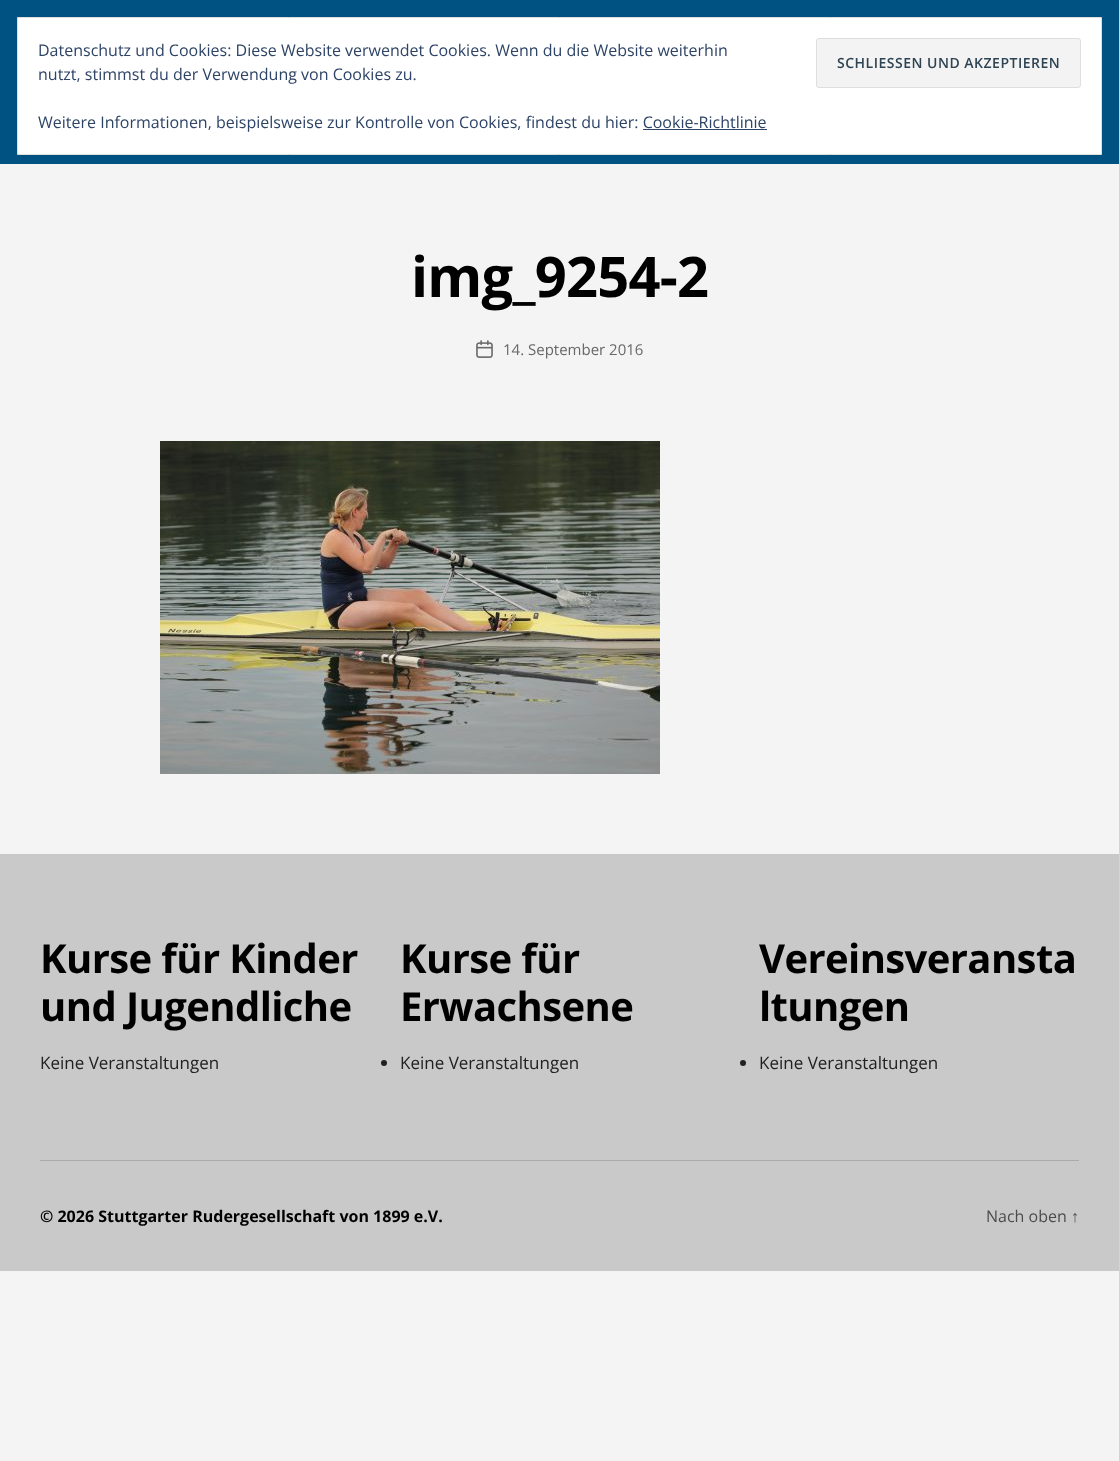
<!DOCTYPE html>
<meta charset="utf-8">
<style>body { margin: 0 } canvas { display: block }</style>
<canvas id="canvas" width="1119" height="1461"></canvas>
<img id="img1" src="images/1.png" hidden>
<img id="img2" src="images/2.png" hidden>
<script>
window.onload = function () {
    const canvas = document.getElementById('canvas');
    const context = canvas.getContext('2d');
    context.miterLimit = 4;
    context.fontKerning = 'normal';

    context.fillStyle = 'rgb(244, 244, 244)';
    context.fillRect(0, 0, 1119, 1461);
    context.fillStyle = 'rgb(0, 82, 130)';
    context.fillRect(0, 0, 1119, 164);
    context.fillStyle = 'rgb(255, 255, 255)';
    context.beginPath();
    context.rect(17.5, 17.5, 1084, 137);
    context.fill();
    context.strokeStyle = 'rgb(222, 222, 222)';
    context.stroke();
    context.fillStyle = 'rgb(243, 243, 243)';
    context.beginPath();
    context.roundRect(816.5, 38.5, 264, 49, 2.5);
    context.fill();
    context.stroke();
    context.fillStyle = 'rgb(46, 68, 103)';
    context.fillRect(643, 129, 124, 1);
    context.drawImage(document.getElementById('img1'), 476, 340, 17, 18);
    context.drawImage(document.getElementById('img2'), 160, 441, 500, 333);
    context.fillStyle = 'rgb(201, 201, 201)';
    context.fillRect(0, 854, 1119, 417);
    context.fillStyle = 'rgb(170, 170, 170)';
    context.fillRect(40, 1160, 1039, 1);
    context.fillStyle = 'rgb(33, 33, 33)';
    context.beginPath();
    context.arc(384, 1063, 3, 0, 2 * Math.PI);
    context.fill();
    context.beginPath();
    context.arc(743, 1063, 3, 0, 2 * Math.PI);
    context.fill();
    context.font = '16px Open Sans';
    context.fillStyle = 'rgb(46, 68, 103)';
    context.fillText('Datenschutz und Cookies: Diese Website verwendet Cookies. Wenn du die Website weiterhin', 38, 56);
    context.letterSpacing = '0.5px';
    context.font = '600 14px Open Sans';
    context.fillStyle = 'rgb(46, 68, 83)';
    context.fillText('SCHLIESSEN UND AKZEPTIEREN', 837, 68);
    context.letterSpacing = '0px';
    context.font = '16px Open Sans';
    context.fillStyle = 'rgb(46, 68, 103)';
    context.fillText('nutzt, stimmst du der Verwendung von Cookies zu.', 38, 80);
    context.fillText('Weitere Informationen, beispielsweise zur Kontrolle von Cookies, findest du hier: Cookie-Richtlinie', 38, 128);
    context.letterSpacing = '-0.75px';
    context.font = 'bold 56px Open Sans';
    context.fillStyle = 'rgb(0, 0, 0)';
    context.fillText('img_9254-2', 411, 297);
    context.letterSpacing = '0px';
    context.font = '15px Open Sans';
    context.fillStyle = 'rgb(104, 104, 104)';
    context.fillText('14. September 2016', 503, 355);
    context.letterSpacing = '-0.6px';
    context.font = 'bold 40px Open Sans';
    context.fillStyle = 'rgb(0, 0, 0)';
    context.fillText('Kurse für Kinder', 40, 973);
    context.fillText('und Jugendliche', 40, 1021);
    context.letterSpacing = '0px';
    context.font = '17px Open Sans';
    context.fillStyle = 'rgb(33, 33, 33)';
    context.fillText('Keine Veranstaltungen', 40, 1069);
    context.letterSpacing = '-0.6px';
    context.font = 'bold 40px Open Sans';
    context.fillStyle = 'rgb(0, 0, 0)';
    context.fillText('Kurse für', 400, 973);
    context.fillText('Erwachsene', 400, 1021);
    context.letterSpacing = '0px';
    context.font = '17px Open Sans';
    context.fillStyle = 'rgb(33, 33, 33)';
    context.fillText('Keine Veranstaltungen', 400, 1069);
    context.letterSpacing = '-0.6px';
    context.font = 'bold 40px Open Sans';
    context.fillStyle = 'rgb(0, 0, 0)';
    context.fillText('Vereinsveransta', 759, 973);
    context.fillText('ltungen', 759, 1021);
    context.letterSpacing = '0px';
    context.font = '17px Open Sans';
    context.fillStyle = 'rgb(33, 33, 33)';
    context.fillText('Keine Veranstaltungen', 759, 1069);
    context.font = 'bold 16px Open Sans';
    context.fillStyle = 'rgb(0, 0, 0)';
    context.fillText('© 2026 Stuttgarter Rudergesellschaft von 1899 e.V.', 40, 1222);
    context.font = '16px Open Sans';
    context.fillStyle = 'rgb(76, 76, 76)';
    context.fillText('Nach oben', 986, 1222);
    context.font = '16px Liberation Sans';
    context.fillText('↑', 1071, 1222);
};
</script>
